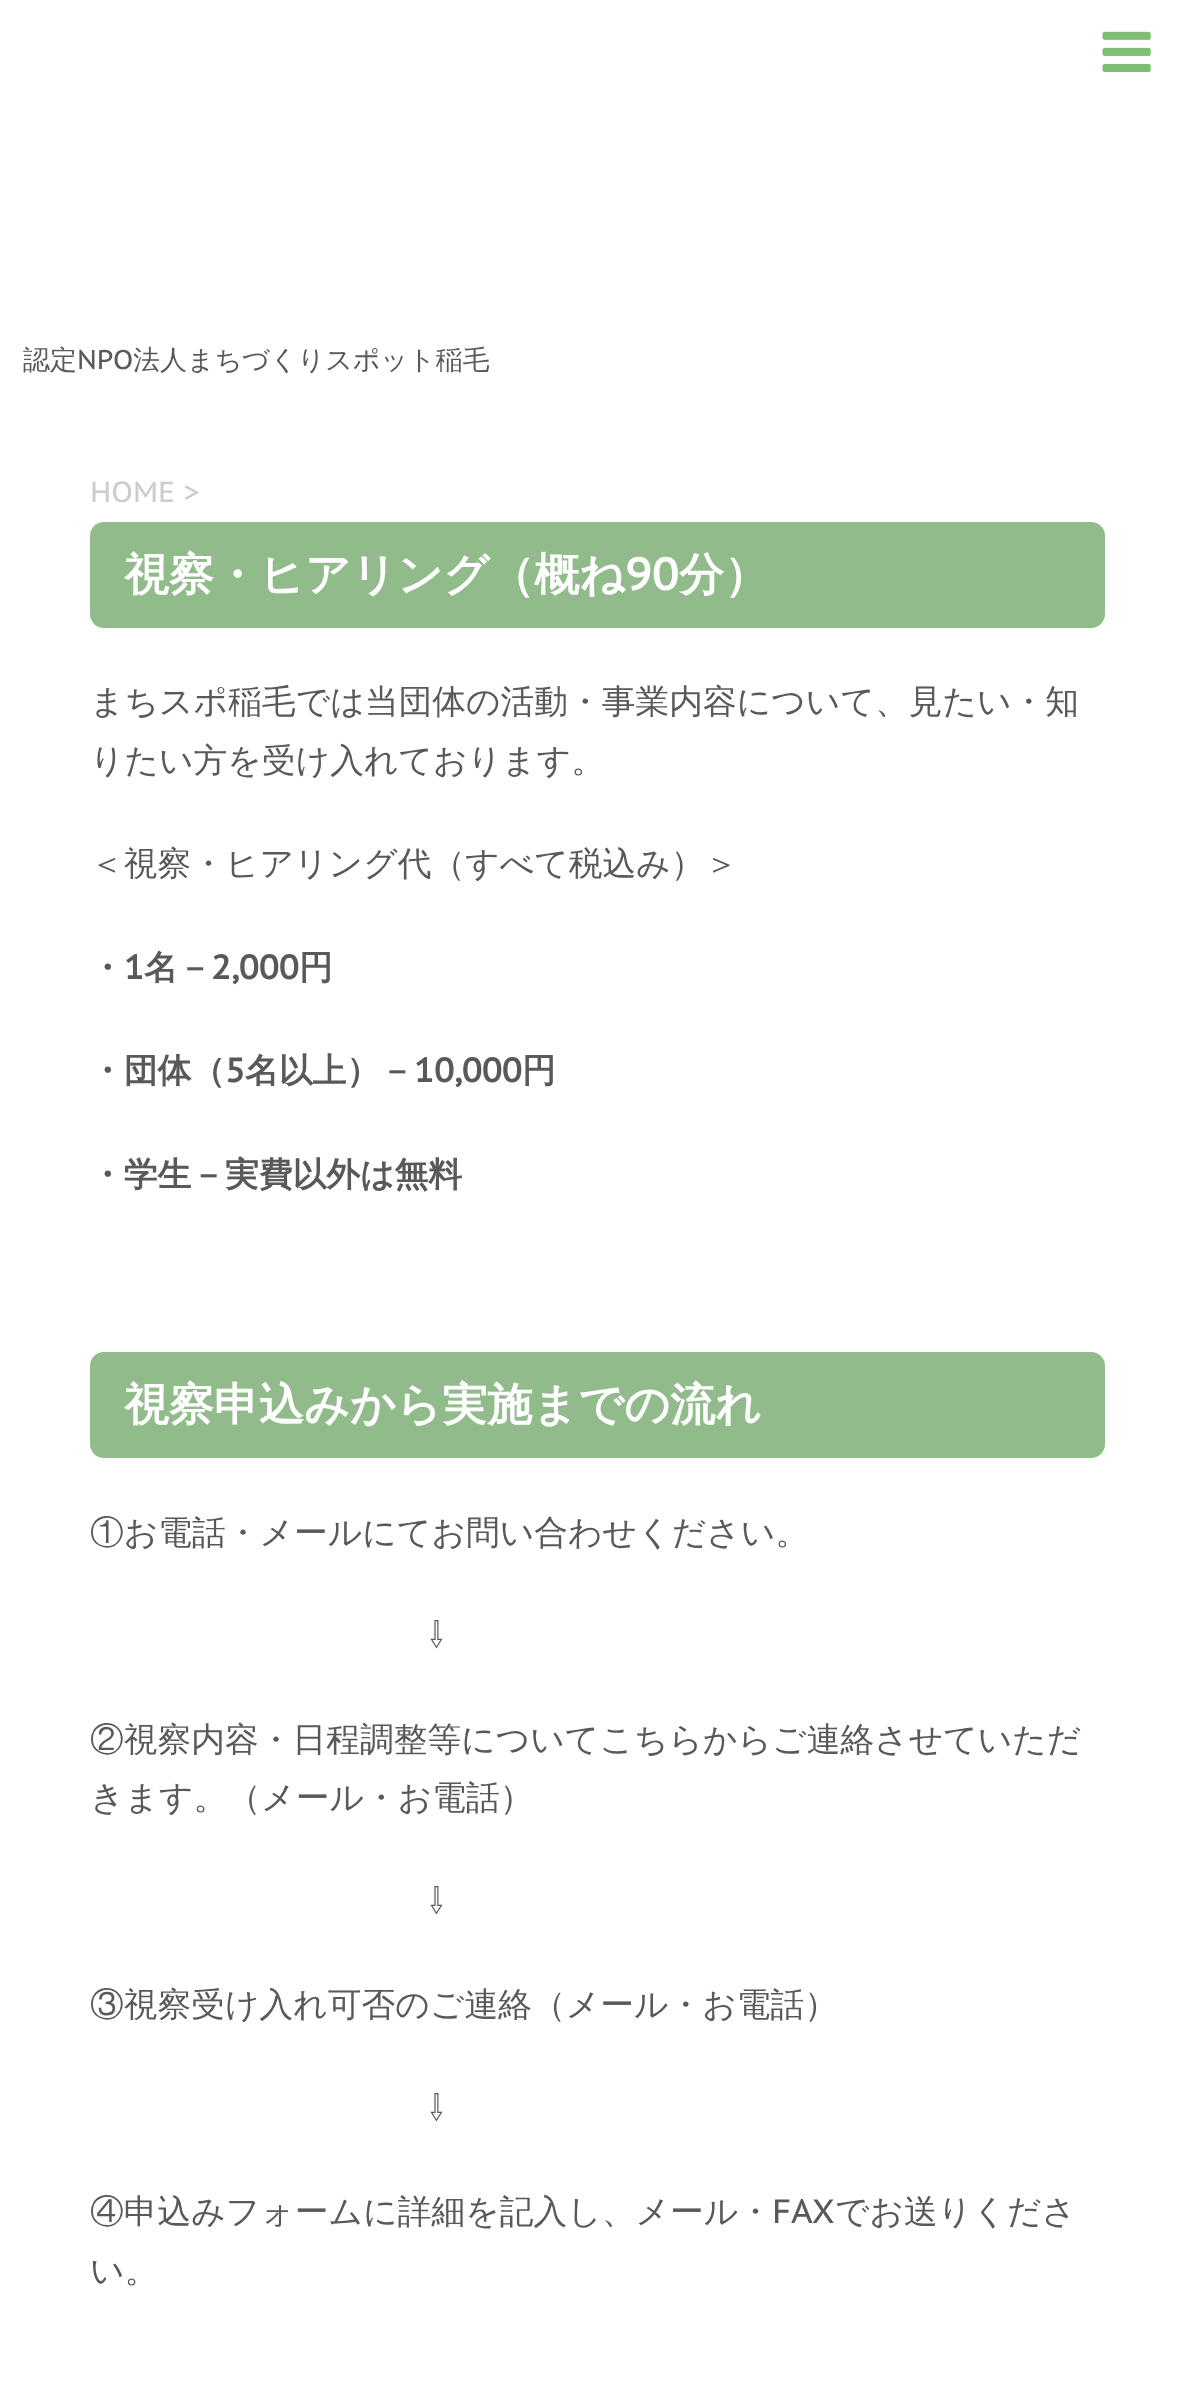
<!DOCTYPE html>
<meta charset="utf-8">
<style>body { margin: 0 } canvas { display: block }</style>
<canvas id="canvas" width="1193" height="2396"></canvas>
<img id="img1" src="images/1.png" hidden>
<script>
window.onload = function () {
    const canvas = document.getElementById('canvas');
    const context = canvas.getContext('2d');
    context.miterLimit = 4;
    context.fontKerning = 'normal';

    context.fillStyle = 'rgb(255, 255, 255)';
    context.fillRect(0, 0, 1193, 2396);
    context.drawImage(document.getElementById('img1'), 1102, 31, 49, 41);
    context.fillStyle = 'rgb(145, 187, 138)';
    context.beginPath();
    context.roundRect(90, 522, 1015, 106, 14);
    context.fill();
    context.beginPath();
    context.roundRect(90, 1352, 1015, 106, 14);
    context.fill();
    context.font = '500 27px WenQuanYi Zen Hei';
    context.fillStyle = 'rgb(89, 89, 89)';
    context.fillText('認定', 23, 369);
    context.font = '27px PT Sans Caption';
    context.fillText('NPO', 77, 369);
    context.font = '500 27px WenQuanYi Zen Hei';
    context.fillText('法人まちづくりスポット稲毛', 133, 369);
    context.font = '29px PT Sans Caption';
    context.fillStyle = 'rgb(204, 204, 204)';
    context.fillText('HOME >', 90, 502);
    context.font = 'bold 45px WenQuanYi Zen Hei';
    context.fillStyle = 'rgb(255, 255, 255)';
    context.fillText('視察・ヒアリング（概ね', 124, 590);
    context.font = 'bold 45px PT Sans Caption';
    context.fillText('90', 625, 590);
    context.font = 'bold 45px WenQuanYi Zen Hei';
    context.fillText('分）', 679, 590);
    context.font = '500 33.75px WenQuanYi Zen Hei';
    context.fillStyle = 'rgb(89, 89, 89)';
    context.fillText('まちスポ稲毛では当団体の活動・事業内容について、見たい・知', 90, 713);
    context.fillText('りたい方を受け入れております。', 90, 772);
    context.fillText('＜視察・ヒアリング代（すべて税込み）＞', 90, 875);
    context.font = 'bold 33.75px WenQuanYi Zen Hei';
    context.fillText('・', 90, 979);
    context.font = 'bold 33.75px PT Sans Caption';
    context.fillText('1', 124, 979);
    context.font = 'bold 33.75px WenQuanYi Zen Hei';
    context.fillText('名－', 144, 979);
    context.font = 'bold 33.75px PT Sans Caption';
    context.fillText('2,000', 211, 979);
    context.font = 'bold 33.75px WenQuanYi Zen Hei';
    context.fillText('円', 299, 979);
    context.fillText('・団体（', 90, 1082);
    context.font = 'bold 33.75px PT Sans Caption';
    context.fillText('5', 225, 1082);
    context.font = 'bold 33.75px WenQuanYi Zen Hei';
    context.fillText('名以上）－', 245, 1082);
    context.font = 'bold 33.75px PT Sans Caption';
    context.fillText('10,000', 414, 1082);
    context.font = 'bold 33.75px WenQuanYi Zen Hei';
    context.fillText('円', 522, 1082);
    context.fillText('・学生－実費以外は無料', 90, 1186);
    context.font = 'bold 45px WenQuanYi Zen Hei';
    context.fillStyle = 'rgb(255, 255, 255)';
    context.fillText('視察申込みから実施までの流れ', 124, 1420);
    context.font = '500 33.75px WenQuanYi Zen Hei';
    context.fillStyle = 'rgb(89, 89, 89)';
    context.fillText('①お電話・メールにてお問い合わせください。', 90, 1544);
    context.font = '33.75px IPAPGothic';
    context.fillText('⇩', 428, 1647);
    context.font = '500 33.75px WenQuanYi Zen Hei';
    context.fillText('②視察内容・日程調整等についてこちらからご連絡させていただ', 90, 1751);
    context.fillText('きます。（メール・お電話）', 90, 1809);
    context.font = '33.75px IPAPGothic';
    context.fillText('⇩', 428, 1913);
    context.font = '500 33.75px WenQuanYi Zen Hei';
    context.fillText('③視察受け入れ可否のご連絡（メール・お電話）', 90, 2016);
    context.font = '33.75px IPAPGothic';
    context.fillText('⇩', 428, 2120);
    context.font = '500 33.75px WenQuanYi Zen Hei';
    context.fillText('④申込みフォームに詳細を記入し、メール・', 90, 2223);
    context.font = '33.75px PT Sans Caption';
    context.fillText('FAX', 772, 2223);
    context.font = '500 33.75px WenQuanYi Zen Hei';
    context.fillText('でお送りくださ', 835, 2223);
    context.fillText('い。', 90, 2282);
};
</script>
